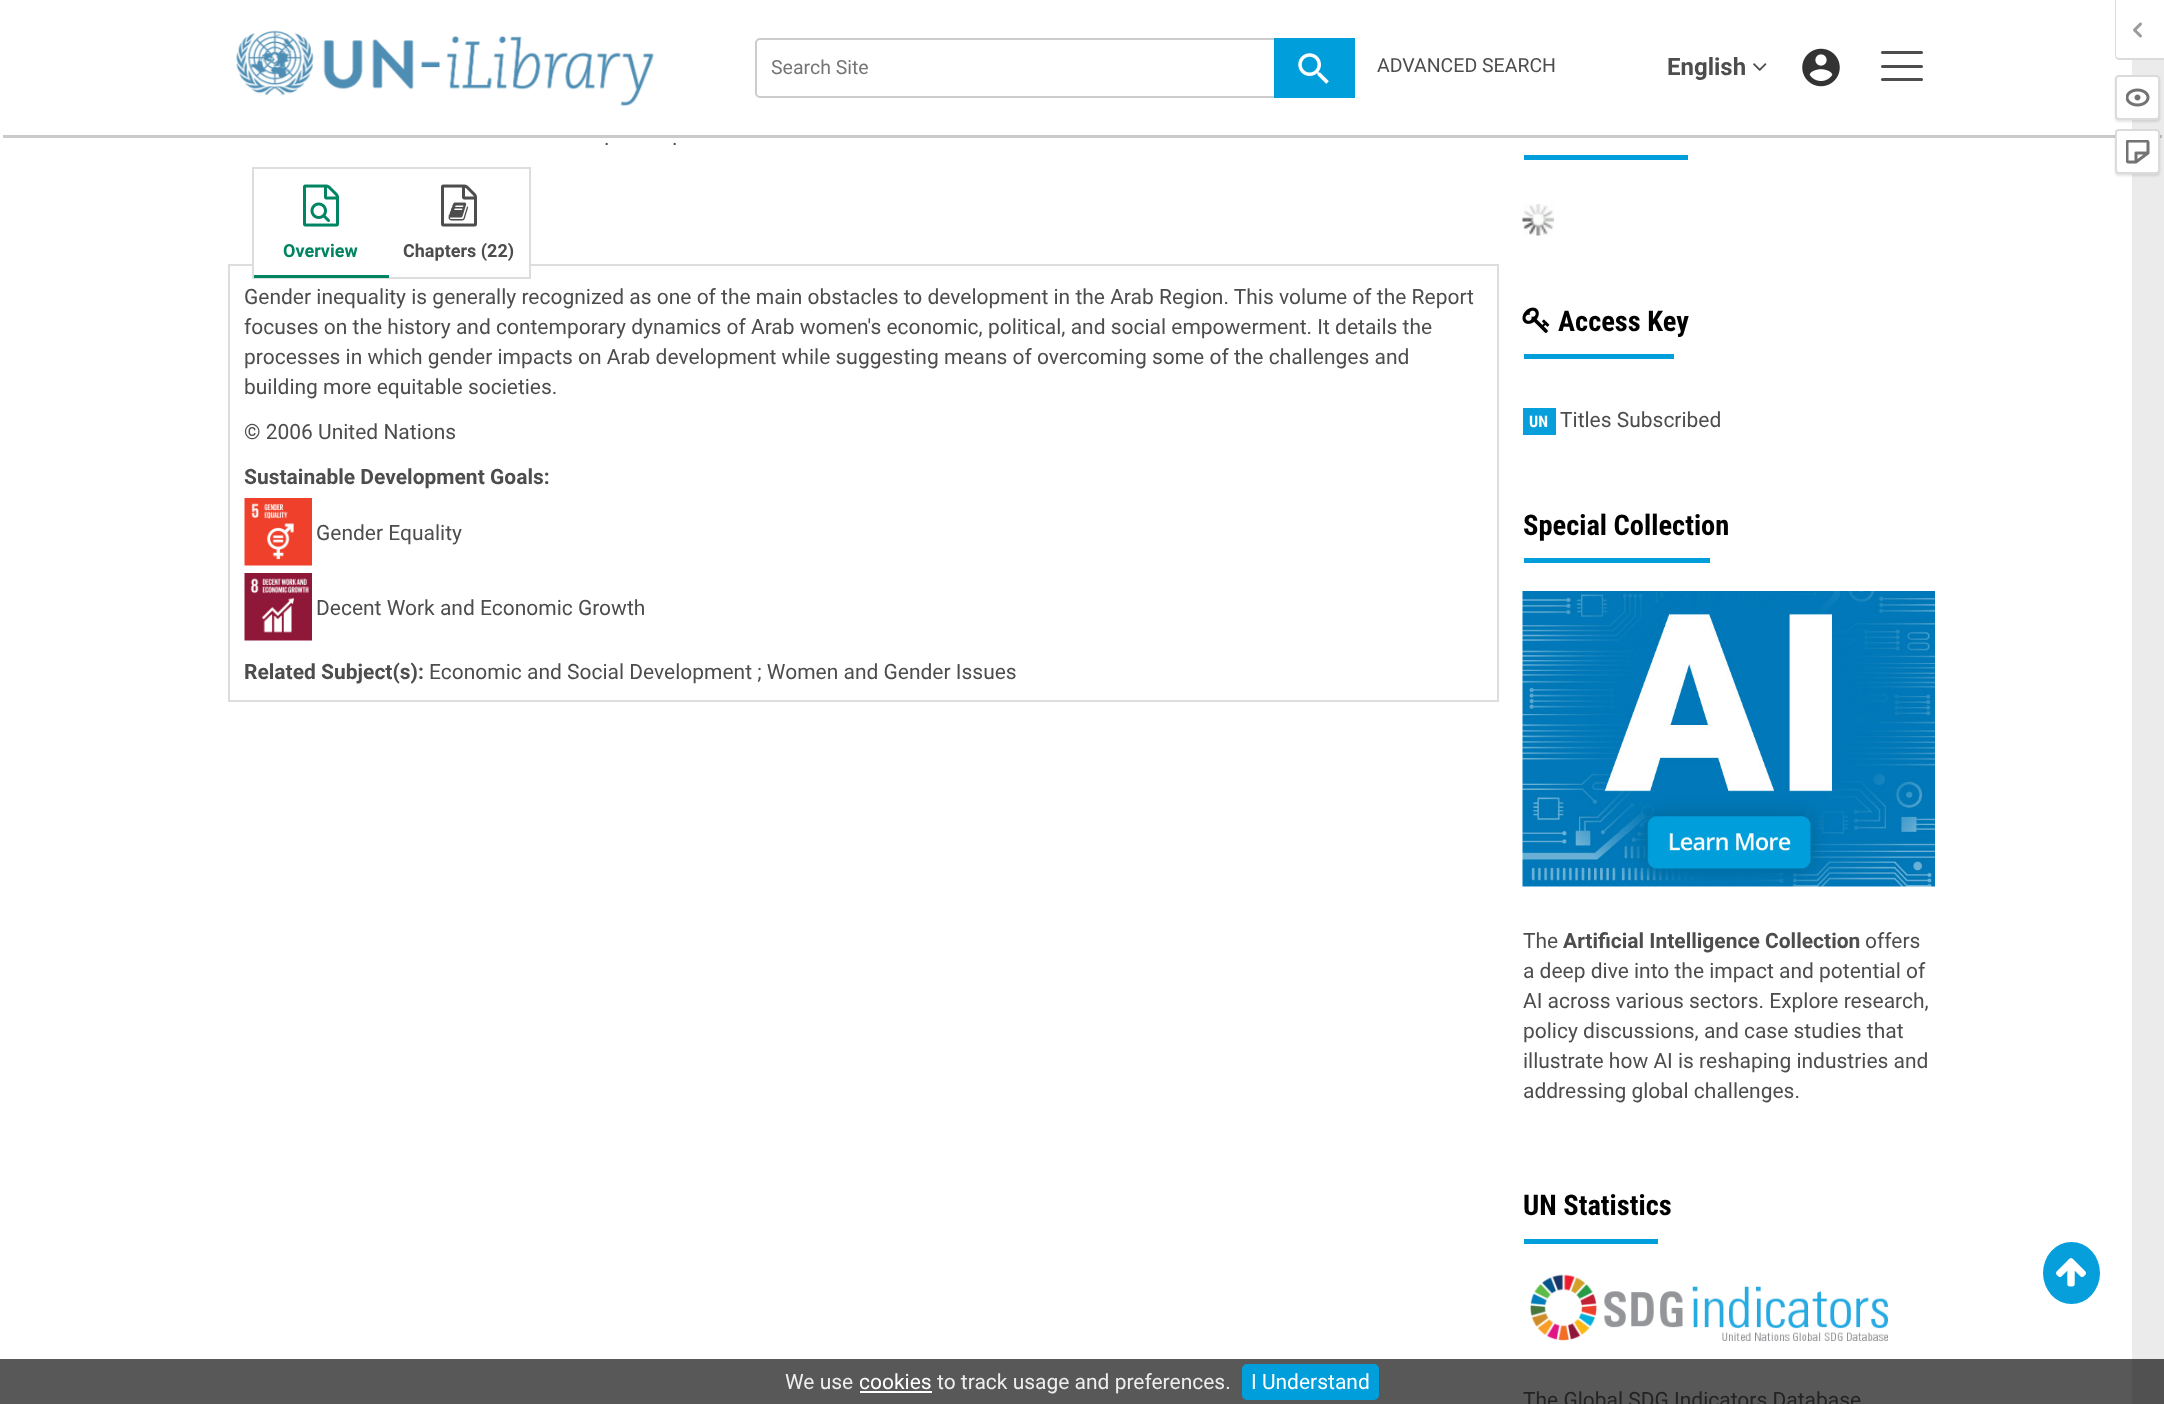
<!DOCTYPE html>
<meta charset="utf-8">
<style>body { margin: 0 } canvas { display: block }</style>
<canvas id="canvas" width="2164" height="1404"></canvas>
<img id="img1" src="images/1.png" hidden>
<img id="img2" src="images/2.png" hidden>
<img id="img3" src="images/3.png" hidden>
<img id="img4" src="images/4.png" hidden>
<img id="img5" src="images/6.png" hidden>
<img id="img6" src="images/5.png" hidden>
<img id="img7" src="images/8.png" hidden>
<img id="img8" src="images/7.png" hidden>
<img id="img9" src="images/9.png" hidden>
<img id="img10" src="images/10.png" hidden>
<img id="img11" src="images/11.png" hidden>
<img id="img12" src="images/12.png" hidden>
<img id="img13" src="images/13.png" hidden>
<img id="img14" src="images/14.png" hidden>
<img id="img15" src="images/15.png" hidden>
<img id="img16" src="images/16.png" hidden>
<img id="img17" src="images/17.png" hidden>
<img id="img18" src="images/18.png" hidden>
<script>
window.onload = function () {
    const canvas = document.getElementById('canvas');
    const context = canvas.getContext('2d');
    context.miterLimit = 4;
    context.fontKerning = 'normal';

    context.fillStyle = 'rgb(255, 255, 255)';
    context.fillRect(0, 0, 2164, 1404);
    context.fillStyle = 'rgb(88, 88, 88)';
    context.fillRect(0, 1359, 2164, 45);
    context.fillStyle = 'rgb(202, 202, 202)';
    context.fillRect(3, 135, 2159, 3);
    context.drawImage(document.getElementById('img1'), 236, 30, 418, 76);
    context.beginPath();
    context.roundRect(756, 39, 598, 58, 4);
    context.strokeStyle = 'rgb(204, 204, 204)';
    context.lineWidth = 2;
    context.stroke();
    context.fillStyle = 'rgb(0, 158, 219)';
    context.fillRect(1274, 38, 81, 60);
    context.drawImage(document.getElementById('img2'), 1298, 53, 31, 31);
    context.drawImage(document.getElementById('img3'), 1753, 63, 14, 8);
    context.drawImage(document.getElementById('img4'), 1802, 48, 38, 39);
    context.fillStyle = 'rgb(77, 77, 77)';
    context.beginPath();
    context.roundRect(1881, 51, 42, 3, 1.5);
    context.fill();
    context.beginPath();
    context.roundRect(1881, 65, 42, 3, 1.5);
    context.fill();
    context.beginPath();
    context.roundRect(1881, 78, 42, 3, 1.5);
    context.fill();
    context.strokeStyle = 'rgb(221, 221, 221)';
    context.strokeRect(229, 265, 1269, 436);
    context.fillStyle = 'rgb(255, 255, 255)';
    context.fillRect(254, 264, 275, 2);
    context.strokeRect(253, 168, 277, 110);
    context.beginPath();
    context.roundRect(254, 174, 135, 104, [6, 6, 0, 0]);
    context.fill();
    context.fillStyle = 'rgb(0, 132, 97)';
    context.fillRect(254, 275, 135, 3);
    context.drawImage(document.getElementById('img5'), 310, 202, 20, 20);
    context.drawImage(document.getElementById('img6'), 303, 184, 36, 43);
    context.drawImage(document.getElementById('img7'), 448, 202, 20, 19);
    context.drawImage(document.getElementById('img8'), 441, 184, 36, 43);
    context.drawImage(document.getElementById('img9'), 244, 498, 68, 68);
    context.drawImage(document.getElementById('img10'), 244, 573, 68, 68);
    context.fillStyle = 'rgb(0, 158, 219)';
    context.fillRect(1524, 155, 164, 5);
    context.drawImage(document.getElementById('img11'), 1522, 204, 32, 32);
    context.drawImage(document.getElementById('img12'), 1522, 307, 28, 26);
    context.fillRect(1524, 354, 150, 5);
    context.fillStyle = 'rgb(6, 158, 219)';
    context.fillRect(1523, 408, 33, 27);
    context.fillStyle = 'rgb(0, 158, 219)';
    context.fillRect(1524, 558, 186, 5);
    context.drawImage(document.getElementById('img13'), 1522, 591, 413, 296);
    context.fillRect(1524, 1239, 134, 5);
    context.drawImage(document.getElementById('img14'), 1530, 1274, 358, 67);
    context.fillStyle = 'rgb(6, 158, 219)';
    context.beginPath();
    context.ellipse(2071.5, 1273, 28.5, 31, 0, 0, 2 * Math.PI);
    context.fill();
    context.drawImage(document.getElementById('img15'), 2056, 1258, 30, 29);
    context.fillStyle = 'rgba(0, 0, 0, 0.08)';
    context.fillRect(2132, 60, 32, 1344);
    context.fillStyle = 'rgb(219, 219, 219)';
    context.beginPath();
    context.moveTo(2115, 0);
    context.lineTo(2164, 0);
    context.lineTo(2164, 60);
    context.lineTo(2119, 60);
    context.bezierCurveTo(2117, 60, 2115, 58, 2115, 56);
    context.closePath();
    context.moveTo(2116, 0);
    context.lineTo(2164, 0);
    context.lineTo(2164, 58);
    context.lineTo(2119, 58);
    context.bezierCurveTo(2118, 58, 2116, 57, 2116, 56);
    context.closePath();
    context.fill('evenodd');
    context.drawImage(document.getElementById('img16'), 2133, 22, 9, 16);
    context.fillStyle = 'rgba(0, 0, 0, 0.1)';
    context.filter = 'blur(1px)';
    context.beginPath();
    context.roundRect(2115, 77, 45, 45, 4);
    context.fill();
    context.filter = 'none';
    context.fillStyle = 'rgb(255, 255, 255)';
    context.beginPath();
    context.roundRect(2116, 76, 43, 43, 3);
    context.fill();
    context.strokeStyle = 'rgb(219, 219, 219)';
    context.stroke();
    context.drawImage(document.getElementById('img17'), 2126, 88, 24, 19);
    context.fillStyle = 'rgba(0, 0, 0, 0.1)';
    context.filter = 'blur(1px)';
    context.beginPath();
    context.roundRect(2115, 131, 45, 45, 4);
    context.fill();
    context.filter = 'none';
    context.fillStyle = 'rgb(255, 255, 255)';
    context.beginPath();
    context.roundRect(2116, 130, 43, 43, 3);
    context.fill();
    context.stroke();
    context.drawImage(document.getElementById('img18'), 2126, 140, 24, 24);
    context.fillRect(860, 1391, 72, 2);
    context.fillStyle = 'rgb(0, 158, 219)';
    context.beginPath();
    context.roundRect(1242, 1364, 137, 36, 5);
    context.fill();
    context.font = '19.5px Roboto';
    context.fillStyle = 'rgb(117, 117, 117)';
    context.fillText('Search Site', 771, 74);
    context.fillStyle = 'rgb(77, 77, 77)';
    context.fillText('ADVANCED SEARCH', 1377, 72);
    context.font = 'bold 24px Roboto';
    context.fillText('English', 1667, 75);
    context.font = '21px Roboto';
    context.fillText('.', 604, 145);
    context.fillText('.', 672, 145);
    context.font = 'bold 18px Roboto';
    context.fillStyle = 'rgb(0, 132, 97)';
    context.fillText('Overview', 283, 257);
    context.fillStyle = 'rgb(77, 77, 77)';
    context.fillText('Chapters (22)', 403, 257);
    context.font = '21px Roboto';
    context.fillText('Gender inequality is generally recognized as one of the main obstacles to development in the Arab Region. This volume of the Report', 244, 304);
    context.fillText('focuses on the history and contemporary dynamics of Arab women\'s economic, political, and social empowerment. It details the', 244, 334);
    context.fillText('processes in which gender impacts on Arab development while suggesting means of overcoming some of the challenges and', 244, 364);
    context.fillText('building more equitable societies.', 244, 394);
    context.fillText('© 2006 United Nations', 244, 439);
    context.font = 'bold 21px Roboto';
    context.fillText('Sustainable Development Goals:', 244, 484);
    context.font = '21px Roboto';
    context.fillText('Gender Equality', 316, 540);
    context.fillText('Decent Work and Economic Growth', 316, 615);
    context.font = 'bold 21px Roboto';
    context.fillText('Related Subject(s):', 244, 679);
    context.font = '21px Roboto';
    context.fillText('Economic and Social Development ; Women and Gender Issues', 429, 679);
    context.font = 'bold 28.5px Roboto Condensed';
    context.fillStyle = 'rgb(0, 0, 0)';
    context.fillText('Access Key', 1558, 331);
    context.font = 'bold 16px Roboto Condensed';
    context.fillStyle = 'rgb(255, 255, 255)';
    context.fillText('UN', 1529, 427);
    context.font = '21px Roboto';
    context.fillStyle = 'rgb(77, 77, 77)';
    context.fillText('Titles Subscribed', 1560, 427);
    context.font = 'bold 28.5px Roboto Condensed';
    context.fillStyle = 'rgb(0, 0, 0)';
    context.fillText('Special Collection', 1523, 535);
    context.font = '21px Roboto';
    context.fillStyle = 'rgb(77, 77, 77)';
    context.fillText('The', 1523, 948);
    context.font = 'bold 21px Roboto';
    context.fillText('Artificial Intelligence Collection', 1563, 948);
    context.font = '21px Roboto';
    context.fillText('offers', 1865, 948);
    context.fillText('a deep dive into the impact and potential of', 1523, 978);
    context.fillText('AI across various sectors. Explore research,', 1523, 1008);
    context.fillText('policy discussions, and case studies that', 1523, 1038);
    context.fillText('illustrate how AI is reshaping industries and', 1523, 1068);
    context.fillText('addressing global challenges.', 1523, 1098);
    context.font = 'bold 28.5px Roboto Condensed';
    context.fillStyle = 'rgb(0, 0, 0)';
    context.fillText('UN Statistics', 1523, 1215);
    context.font = '21px Roboto';
    context.fillStyle = 'rgb(35, 35, 35)';
    context.fillText('The Global SDG Indicators Database', 1523, 1407);
    context.fillStyle = 'rgb(238, 238, 238)';
    context.fillText('We use', 785, 1389);
    context.fillStyle = 'rgb(255, 255, 255)';
    context.fillText('cookies', 859, 1389);
    context.fillStyle = 'rgb(238, 238, 238)';
    context.fillText('to track usage and preferences.', 937, 1389);
    context.fillStyle = 'rgb(255, 255, 255)';
    context.fillText('I Understand', 1251, 1389);
};
</script>
